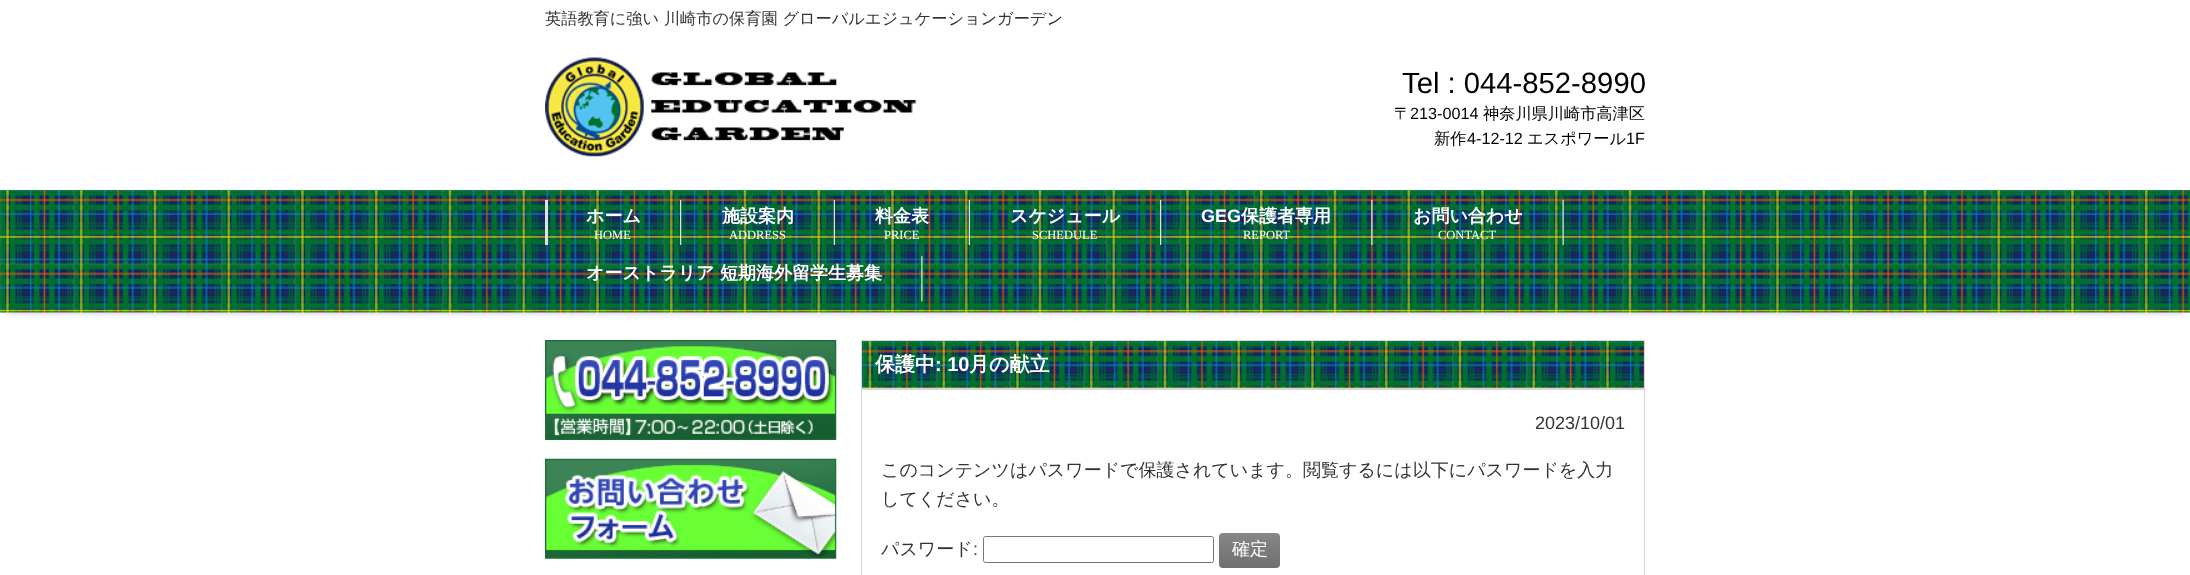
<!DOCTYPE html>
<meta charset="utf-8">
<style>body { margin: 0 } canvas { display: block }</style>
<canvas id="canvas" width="2190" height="575"></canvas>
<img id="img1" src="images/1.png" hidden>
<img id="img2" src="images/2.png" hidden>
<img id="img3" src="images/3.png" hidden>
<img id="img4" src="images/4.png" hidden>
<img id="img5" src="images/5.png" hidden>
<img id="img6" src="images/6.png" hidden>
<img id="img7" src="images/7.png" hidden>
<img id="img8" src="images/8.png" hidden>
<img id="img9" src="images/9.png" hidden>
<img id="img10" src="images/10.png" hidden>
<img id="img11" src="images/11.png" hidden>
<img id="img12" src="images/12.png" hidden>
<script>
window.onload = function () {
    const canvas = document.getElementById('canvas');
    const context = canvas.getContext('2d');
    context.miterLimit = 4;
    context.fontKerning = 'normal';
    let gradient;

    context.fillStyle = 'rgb(255, 255, 255)';
    context.fillRect(0, 0, 2190, 575);
    context.drawImage(document.getElementById('img1'), 545, 57, 372, 100);
    context.fillStyle = 'rgba(0, 0, 0, 0.2)';
    context.filter = 'blur(3px)';
    context.beginPath();
    context.rect(6, 203, 2178, 110);
    context.fill();
    context.filter = 'none';
    context.fillStyle = 'rgb(255, 255, 255)';
    context.fillRect(1, 198, 2188, 115);
    context.drawImage(document.getElementById('img2'), 0, 190, 2190, 123);
    context.fillStyle = 'rgb(224, 224, 224)';
    context.fillRect(545, 200, 3, 45);
    context.drawImage(document.getElementById('img3'), 680, 200, 2, 45);
    context.drawImage(document.getElementById('img4'), 833, 200, 2, 45);
    context.drawImage(document.getElementById('img5'), 968, 200, 2, 45);
    context.drawImage(document.getElementById('img6'), 1160, 200, 2, 45);
    context.drawImage(document.getElementById('img7'), 1371, 200, 2, 45);
    context.drawImage(document.getElementById('img8'), 1562, 200, 2, 45);
    context.drawImage(document.getElementById('img9'), 921, 256, 2, 46);
    context.drawImage(document.getElementById('img10'), 545, 340, 292, 100);
    context.drawImage(document.getElementById('img11'), 545, 458, 292, 101);
    context.drawImage(document.getElementById('img12'), 862, 341, 782, 47);
    context.strokeStyle = 'rgb(213, 213, 213)';
    context.strokeRect(861.5, 340.5, 783, 48);
    context.strokeRect(861.5, 389.5, 783, 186);
    context.beginPath();
    context.roundRect(983.5, 536.5, 230, 26, 2);
    context.strokeStyle = 'rgb(118, 118, 118)';
    context.stroke();
    gradient = context.createLinearGradient(1249, 533, 1249, 568);
    gradient.addColorStop(0, 'rgb(135, 135, 135)');
    gradient.addColorStop(1, 'rgb(111, 111, 111)');
    context.fillStyle = gradient;
    context.beginPath();
    context.roundRect(1219, 533, 61, 35, 4);
    context.fill();
    context.font = '500 16.2px WenQuanYi Zen Hei';
    context.fillStyle = 'rgb(51, 51, 51)';
    context.fillText('英語教育に強い 川崎市の保育園 グローバルエジュケーションガーデン', 545, 24);
    context.font = '29.25px Liberation Sans';
    context.fillStyle = 'rgb(0, 0, 0)';
    context.fillText('Tel : 044-852-8990', 1402, 93);
    context.font = '500 16.2px WenQuanYi Zen Hei';
    context.fillText('〒', 1394, 119);
    context.font = '16.2px Liberation Sans';
    context.fillText('213-0014', 1410, 119);
    context.font = '500 16.2px WenQuanYi Zen Hei';
    context.fillText('神奈川県川崎市高津区', 1483, 119);
    context.fillText('新作', 1434, 144);
    context.font = '16.2px Liberation Sans';
    context.fillText('4-12-12', 1467, 144);
    context.font = '500 16.2px WenQuanYi Zen Hei';
    context.fillText('エスポワール', 1527, 144);
    context.font = '16.2px Liberation Sans';
    context.fillText('1F', 1626, 144);
    context.font = 'bold 18px WenQuanYi Zen Hei';
    context.fillStyle = 'rgb(255, 255, 255)';
    context.fillText('ホーム', 586, 222);
    context.font = '12.5px Liberation Serif';
    context.fillText('HOME', 594, 239);
    context.font = 'bold 18px WenQuanYi Zen Hei';
    context.fillText('施設案内', 722, 222);
    context.font = '12.5px Liberation Serif';
    context.fillText('ADDRESS', 729, 239);
    context.font = 'bold 18px WenQuanYi Zen Hei';
    context.fillText('料金表', 875, 222);
    context.font = '12.5px Liberation Serif';
    context.fillText('PRICE', 884, 239);
    context.font = 'bold 18px WenQuanYi Zen Hei';
    context.fillText('スケジュール', 1010, 222);
    context.font = '12.5px Liberation Serif';
    context.fillText('SCHEDULE', 1032, 239);
    context.font = 'bold 18px Liberation Sans';
    context.fillText('GEG', 1201, 222);
    context.font = 'bold 18px WenQuanYi Zen Hei';
    context.fillText('保護者専用', 1241, 222);
    context.font = '12.5px Liberation Serif';
    context.fillText('REPORT', 1243, 239);
    context.font = 'bold 18px WenQuanYi Zen Hei';
    context.fillText('お問い合わせ', 1413, 222);
    context.font = '12.5px Liberation Serif';
    context.fillText('CONTACT', 1438, 239);
    context.font = 'bold 18px WenQuanYi Zen Hei';
    context.fillText('オーストラリア 短期海外留学生募集', 586, 279);
    context.font = 'bold 20px WenQuanYi Zen Hei';
    context.fillText('保護中', 875, 371);
    context.font = 'bold 20px Liberation Sans';
    context.fillText(': 10', 935, 371);
    context.font = 'bold 20px WenQuanYi Zen Hei';
    context.fillText('月の献立', 969, 371);
    context.font = '18px Liberation Sans';
    context.fillStyle = 'rgb(51, 51, 51)';
    context.fillText('2023/10/01', 1535, 429);
    context.font = '500 18px WenQuanYi Zen Hei';
    context.fillText('このコンテンツはパスワードで保護されています。閲覧するには以下にパスワードを入力', 881, 476);
    context.fillText('してください。', 881, 505);
    context.fillText('パスワード', 881, 555);
    context.font = '18px Liberation Sans';
    context.fillText(':', 973, 555);
    context.font = '500 18px WenQuanYi Zen Hei';
    context.fillStyle = 'rgb(255, 255, 255)';
    context.fillText('確定', 1232, 555);
};
</script>
